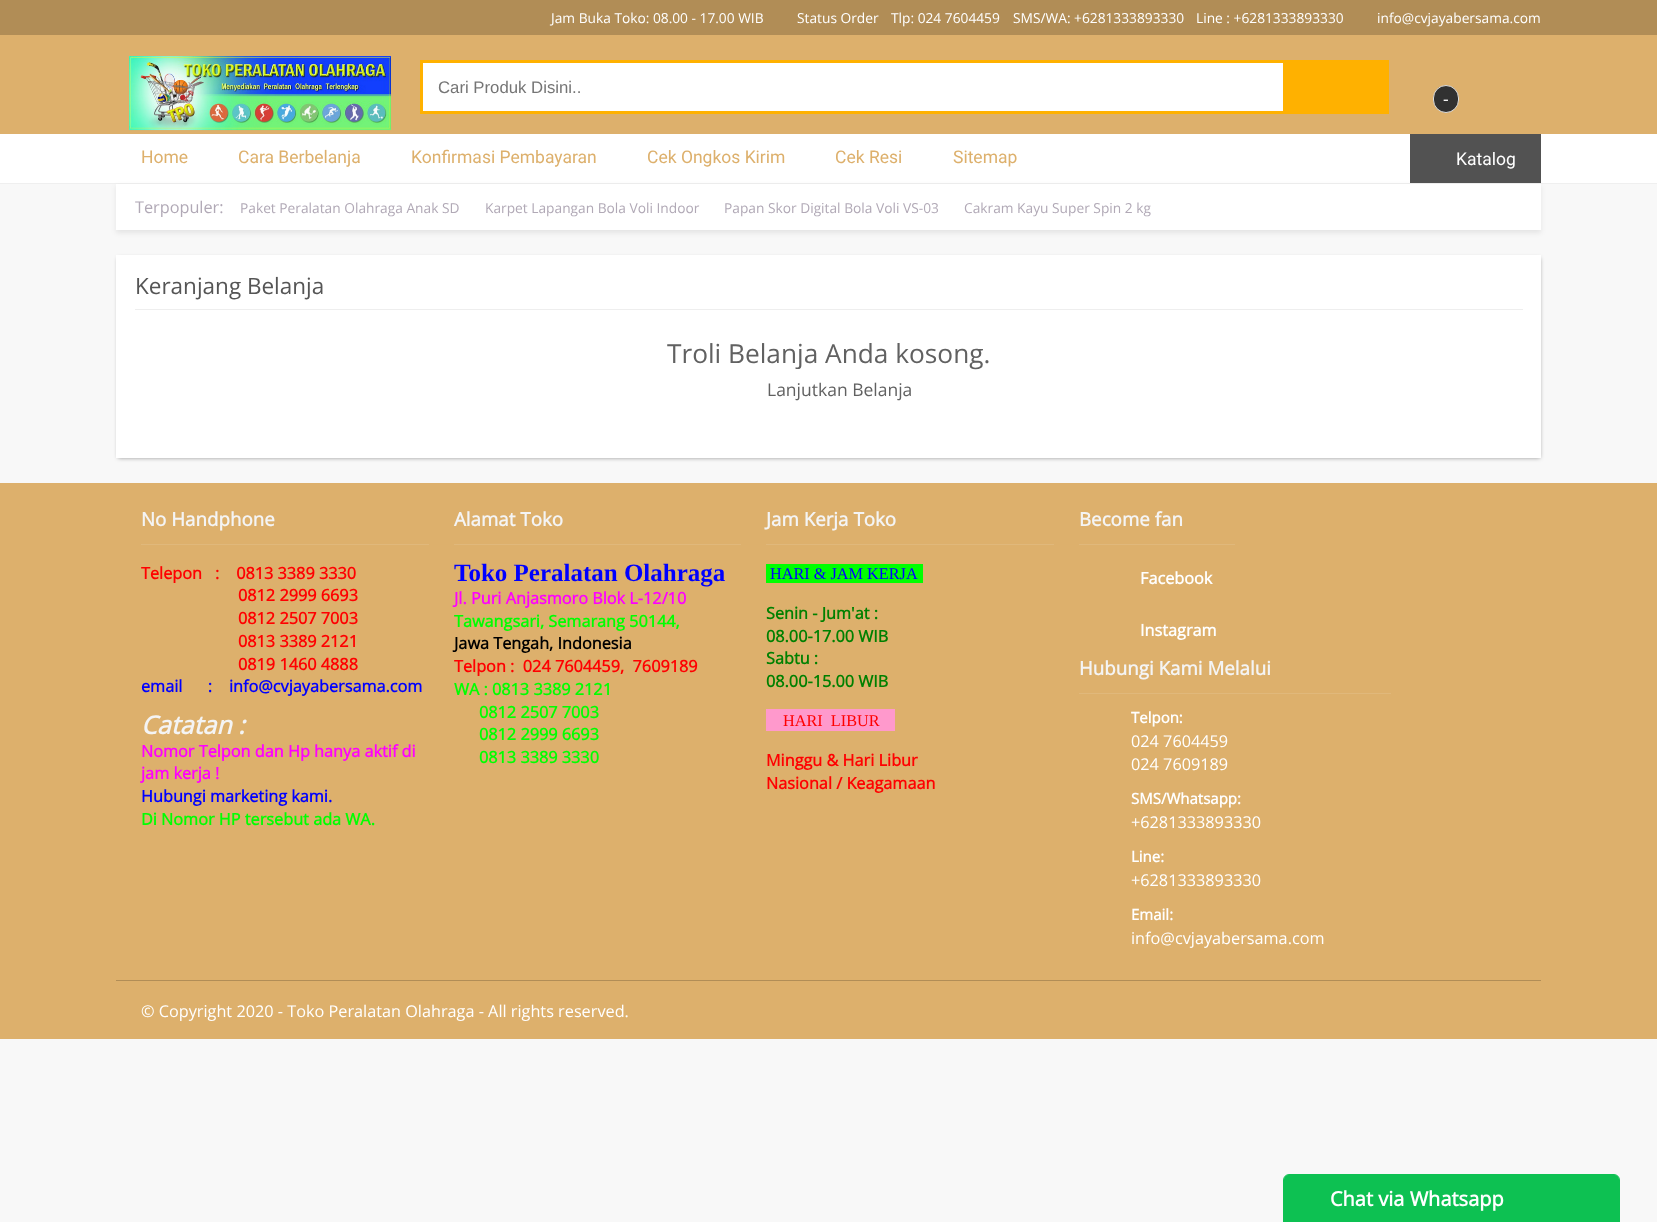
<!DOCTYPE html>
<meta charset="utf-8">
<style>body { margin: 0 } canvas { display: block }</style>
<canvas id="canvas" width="1657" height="1222"></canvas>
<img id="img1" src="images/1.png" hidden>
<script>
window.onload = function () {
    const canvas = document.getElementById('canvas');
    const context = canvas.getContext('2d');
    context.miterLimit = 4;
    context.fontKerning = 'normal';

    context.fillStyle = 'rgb(248, 248, 248)';
    context.fillRect(0, 0, 1657, 1222);
    context.fillStyle = 'rgb(221, 176, 108)';
    context.fillRect(0, 35, 1657, 99);
    context.fillStyle = 'rgb(177, 141, 86)';
    context.fillRect(0, 0, 1657, 35);
    context.drawImage(document.getElementById('img1'), 129, 56, 262, 75);
    context.fillStyle = 'rgb(255, 255, 255)';
    context.fillRect(423, 63, 860, 48);
    context.strokeStyle = 'rgb(255, 177, 0)';
    context.lineWidth = 3;
    context.strokeRect(421.5, 61.5, 966, 51);
    context.fillStyle = 'rgb(255, 177, 0)';
    context.fillRect(1283, 63, 103, 48);
    context.fillStyle = 'rgb(49, 49, 49)';
    context.beginPath();
    context.roundRect(1433.5, 85.5, 25, 27, 12.5);
    context.fill();
    context.strokeStyle = 'rgb(221, 221, 221)';
    context.lineWidth = 1;
    context.stroke();
    context.fillStyle = 'rgb(255, 255, 255)';
    context.fillRect(0, 134, 1657, 49);
    context.fillStyle = 'rgb(239, 239, 239)';
    context.fillRect(0, 183, 1657, 1);
    context.fillStyle = 'rgba(0, 0, 0, 0.08)';
    context.filter = 'blur(2.5px)';
    context.beginPath();
    context.rect(116, 186, 1425, 47);
    context.fill();
    context.filter = 'none';
    context.fillStyle = 'rgb(82, 82, 82)';
    context.fillRect(1410, 134, 131, 49);
    context.fillStyle = 'rgb(255, 255, 255)';
    context.fillRect(116, 184, 1425, 46);
    context.fillStyle = 'rgba(0, 0, 0, 0.4)';
    context.filter = 'blur(2px)';
    context.beginPath();
    context.rect(118, 258, 1422, 200);
    context.fill();
    context.filter = 'none';
    context.fillStyle = 'rgb(255, 255, 255)';
    context.fillRect(116, 255, 1425, 203);
    context.fillStyle = 'rgb(238, 238, 238)';
    context.fillRect(135, 309, 1388, 1);
    context.fillStyle = 'rgb(221, 176, 108)';
    context.fillRect(0, 483, 1657, 556);
    context.fillStyle = 'rgb(224, 184, 123)';
    context.fillRect(141, 544, 288, 1);
    context.fillRect(454, 544, 287, 1);
    context.fillRect(766, 544, 288, 1);
    context.fillStyle = 'rgb(0, 255, 0)';
    context.fillRect(766, 564, 157, 19);
    context.fillStyle = 'rgb(255, 153, 204)';
    context.fillRect(766, 709, 129, 22);
    context.fillStyle = 'rgb(224, 184, 123)';
    context.fillRect(1079, 544, 156, 1);
    context.fillRect(1079, 693, 312, 1);
    context.fillStyle = 'rgb(177, 141, 86)';
    context.fillRect(116, 980, 1425, 1);
    context.beginPath();
    context.moveTo(1289, 1174.5);
    context.lineTo(1614, 1174.5);
    context.bezierCurveTo(1617, 1174.5, 1619.5, 1177, 1619.5, 1180);
    context.lineTo(1619.5, 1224.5);
    context.lineTo(1283.5, 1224.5);
    context.lineTo(1283.5, 1180);
    context.bezierCurveTo(1283.5, 1177, 1286, 1174.5, 1289, 1174.5);
    context.closePath();
    context.strokeStyle = 'rgb(13, 193, 82)';
    context.stroke();
    context.fillStyle = 'rgb(13, 193, 82)';
    context.beginPath();
    context.moveTo(1288, 1175);
    context.lineTo(1615, 1175);
    context.bezierCurveTo(1617, 1175, 1619, 1177, 1619, 1179);
    context.lineTo(1619, 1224);
    context.lineTo(1284, 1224);
    context.lineTo(1284, 1179);
    context.bezierCurveTo(1284, 1177, 1286, 1175, 1288, 1175);
    context.closePath();
    context.fill();
    context.font = '13.75px Open Sans';
    context.fillStyle = 'rgb(255, 255, 255)';
    context.fillText('Jam Buka Toko: 08.00 - 17.00 WIB', 551, 23);
    context.fillText('Status Order', 797, 23);
    context.fillText('Tlp: 024 7604459', 891, 23);
    context.fillText('SMS/WA: +6281333893330', 1013, 23);
    context.fillText('Line : +6281333893330', 1196, 23);
    context.fillText('info@cvjayabersama.com', 1377, 23);
    context.font = '16.75px Liberation Sans';
    context.fillStyle = 'rgb(117, 117, 117)';
    context.fillText('Cari Produk Disini..', 438, 93);
    context.font = '17.5px Open Sans';
    context.fillStyle = 'rgb(255, 255, 255)';
    context.fillText('-', 1443, 105);
    context.font = '17.5px Roboto';
    context.fillStyle = 'rgb(221, 176, 108)';
    context.fillText('Home', 141, 163);
    context.fillText('Cara Berbelanja', 238, 163);
    context.fillText('Konfirmasi Pembayaran', 411, 163);
    context.fillText('Cek Ongkos Kirim', 647, 163);
    context.fillText('Cek Resi', 835, 163);
    context.fillText('Sitemap', 953, 163);
    context.fillStyle = 'rgb(255, 255, 255)';
    context.fillText('Katalog', 1456, 165);
    context.font = '16.25px Open Sans';
    context.fillStyle = 'rgb(177, 169, 182)';
    context.fillText('Terpopuler:', 135, 213);
    context.font = '13.75px Open Sans';
    context.fillText('Paket Peralatan Olahraga Anak SD', 240, 213);
    context.fillText('Karpet Lapangan Bola Voli Indoor', 485, 213);
    context.fillText('Papan Skor Digital Bola Voli VS-03', 724, 213);
    context.fillText('Cakram Kayu Super Spin 2 kg', 964, 213);
    context.font = '22.5px Open Sans';
    context.fillStyle = 'rgb(85, 85, 85)';
    context.fillText('Keranjang Belanja', 135, 294);
    context.font = '26.25px Open Sans';
    context.fillStyle = 'rgb(97, 97, 97)';
    context.fillText('Troli Belanja Anda kosong.', 667, 363);
    context.fillStyle = 'rgb(255, 255, 255)';
    context.fillRect(796, 369, 4, 1);
    context.font = '17.5px Open Sans';
    context.fillStyle = 'rgb(97, 97, 97)';
    context.fillText('Lanjutkan Belanja', 767, 396);
    context.font = 'bold 18.75px Open Sans';
    context.fillStyle = 'rgb(244, 244, 244)';
    context.fillText('No Handphone', 141, 526);
    context.font = 'bold 16.25px Open Sans';
    context.fillStyle = 'rgb(255, 0, 0)';
    context.fillText('Telepon', 141, 579);
    context.fillText(':    0813 3389 3330', 215, 579);
    context.fillText('0812 2999 6693', 238, 601);
    context.fillText('0812 2507 7003', 238, 624);
    context.fillText('0813 3389 2121', 238, 647);
    context.fillText('0819 1460 4888', 238, 670);
    context.fillStyle = 'rgb(0, 0, 255)';
    context.fillText('email      :    info@cvjayabersama.com', 141, 692);
    context.font = 'italic bold 25px Open Sans';
    context.fillStyle = 'rgb(244, 244, 244)';
    context.fillText('Catatan :', 141, 734);
    context.font = 'bold 16.25px Open Sans';
    context.fillStyle = 'rgb(255, 0, 255)';
    context.fillText('Nomor Telpon dan Hp hanya aktif di', 141, 757);
    context.fillText('jam kerja !', 141, 779);
    context.fillStyle = 'rgb(0, 0, 255)';
    context.fillText('Hubungi marketing kami.', 141, 802);
    context.fillStyle = 'rgb(0, 255, 0)';
    context.fillText('Di Nomor HP tersebut ada WA.', 141, 825);
    context.font = 'bold 18.75px Open Sans';
    context.fillStyle = 'rgb(244, 244, 244)';
    context.fillText('Alamat Toko', 454, 526);
    context.font = 'bold 25px Liberation Serif';
    context.fillStyle = 'rgb(0, 0, 255)';
    context.fillText('Toko Peralatan Olahraga', 454, 581);
    context.font = 'bold 16.25px Open Sans';
    context.fillStyle = 'rgb(255, 0, 255)';
    context.fillText('Jl. Puri Anjasmoro Blok L-12/10', 454, 604);
    context.fillStyle = 'rgb(0, 255, 0)';
    context.fillText('Tawangsari, Semarang 50144,', 454, 627);
    context.fillStyle = 'rgb(0, 0, 0)';
    context.fillText('Jawa Tengah, Indonesia', 454, 649);
    context.fillStyle = 'rgb(255, 0, 0)';
    context.fillText('Telpon :  024 7604459,  7609189', 454, 672);
    context.fillStyle = 'rgb(0, 255, 0)';
    context.fillText('WA : 0813 3389 2121', 454, 695);
    context.fillText('0812 2507 7003', 479, 718);
    context.fillText('0812 2999 6693', 479, 740);
    context.fillText('0813 3389 3330', 479, 763);
    context.font = 'bold 18.75px Open Sans';
    context.fillStyle = 'rgb(244, 244, 244)';
    context.fillText('Jam Kerja Toko', 766, 526);
    context.font = '16.25px Liberation Serif';
    context.fillStyle = 'rgb(0, 0, 255)';
    context.fillText('HARI & JAM KERJA', 770, 579);
    context.font = 'bold 16.25px Open Sans';
    context.fillStyle = 'rgb(0, 128, 0)';
    context.fillText('Senin - Jum\'at :', 766, 619);
    context.fillText('08.00-17.00 WIB', 766, 642);
    context.fillText('Sabtu :', 766, 664);
    context.fillText('08.00-15.00 WIB', 766, 687);
    context.font = '16.25px Liberation Serif';
    context.fillStyle = 'rgb(255, 0, 0)';
    context.fillText('HARI  LIBUR', 783, 726);
    context.font = 'bold 16.25px Open Sans';
    context.fillText('Minggu & Hari Libur', 766, 766);
    context.fillText('Nasional / Keagamaan', 766, 789);
    context.font = 'bold 18.75px Open Sans';
    context.fillStyle = 'rgb(244, 244, 244)';
    context.fillText('Become fan', 1079, 526);
    context.font = 'bold 16.25px Open Sans';
    context.fillStyle = 'rgb(255, 255, 255)';
    context.fillText('Facebook', 1140, 584);
    context.fillText('Instagram', 1140, 636);
    context.font = 'bold 18.75px Open Sans';
    context.fillStyle = 'rgb(244, 244, 244)';
    context.fillText('Hubungi Kami Melalui', 1079, 675);
    context.font = 'bold 15px Open Sans';
    context.fillStyle = 'rgb(255, 255, 255)';
    context.fillText('Telpon:', 1131, 723);
    context.font = '16.25px Open Sans';
    context.fillText('024 7604459', 1131, 747);
    context.fillText('024 7609189', 1131, 770);
    context.font = 'bold 15px Open Sans';
    context.fillText('SMS/Whatsapp:', 1131, 804);
    context.font = '16.25px Open Sans';
    context.fillText('+6281333893330', 1131, 828);
    context.font = 'bold 15px Open Sans';
    context.fillText('Line:', 1131, 862);
    context.font = '16.25px Open Sans';
    context.fillText('+6281333893330', 1131, 886);
    context.font = 'bold 15px Open Sans';
    context.fillText('Email:', 1131, 920);
    context.font = '16.25px Open Sans';
    context.fillText('info@cvjayabersama.com', 1131, 944);
    context.fillText('© Copyright 2020 - Toko Peralatan Olahraga - All rights reserved.', 141, 1017);
    context.font = 'bold 20px Open Sans';
    context.fillText('Chat via Whatsapp', 1330, 1206);
};
</script>
